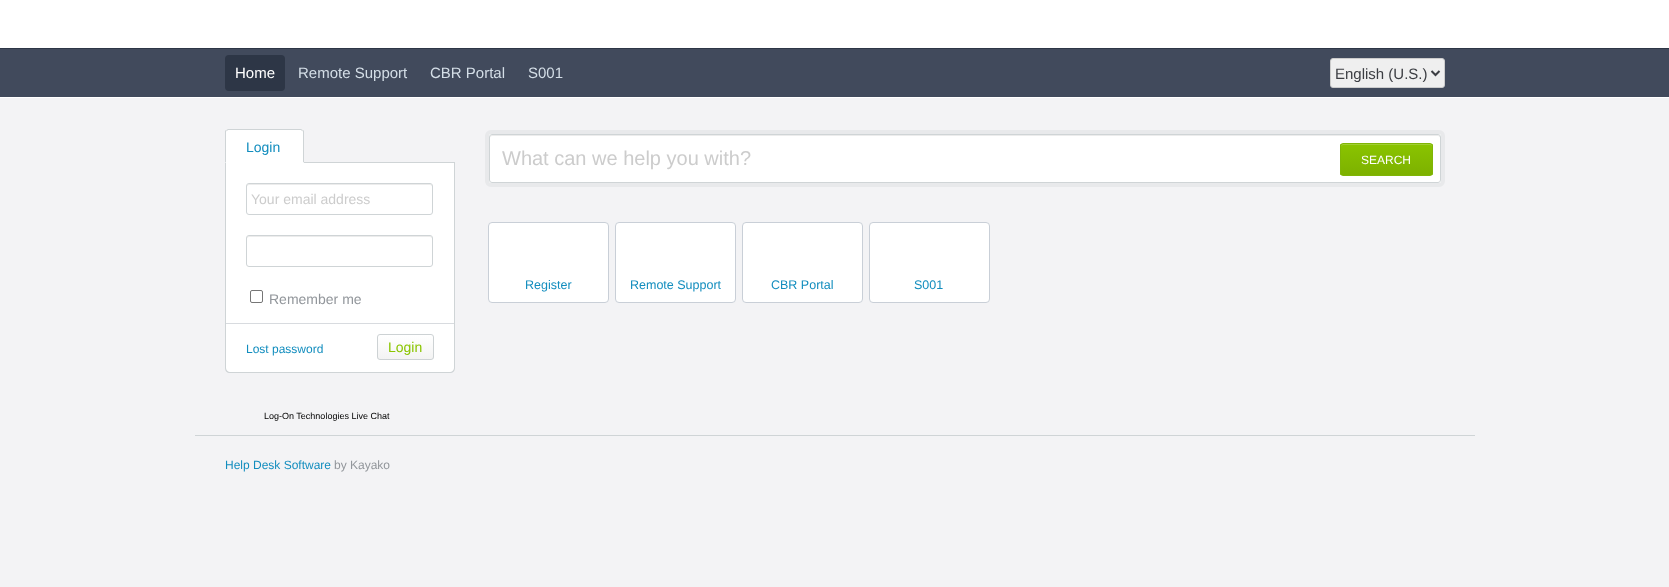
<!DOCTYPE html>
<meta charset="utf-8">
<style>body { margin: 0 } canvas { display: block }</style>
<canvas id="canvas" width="1669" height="587"></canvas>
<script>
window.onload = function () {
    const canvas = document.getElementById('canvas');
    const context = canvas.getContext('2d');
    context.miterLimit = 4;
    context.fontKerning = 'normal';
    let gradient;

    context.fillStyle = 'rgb(243, 243, 245)';
    context.fillRect(0, 0, 1669, 587);
    context.fillStyle = 'rgb(255, 255, 255)';
    context.fillRect(0, 0, 1669, 48);
    context.fillStyle = 'rgb(65, 74, 92)';
    context.fillRect(0, 49, 1669, 48);
    context.fillStyle = 'rgb(45, 54, 70)';
    context.fillRect(0, 48, 1669, 1);
    context.fillStyle = 'rgb(255, 255, 255)';
    context.fillRect(0, 97, 1669, 1);
    context.fillStyle = 'rgb(45, 54, 70)';
    context.beginPath();
    context.roundRect(225, 55, 60, 36, 4);
    context.fill();
    context.fillStyle = 'rgb(239, 239, 239)';
    context.beginPath();
    context.roundRect(1330.5, 58.5, 114, 29, 2.5);
    context.fill();
    context.strokeStyle = 'rgb(204, 204, 204)';
    context.stroke();
    context.beginPath();
    context.moveTo(1431.5, 71);
    context.lineTo(1435.5, 75);
    context.lineTo(1439.5, 71);
    context.strokeStyle = 'rgb(60, 62, 67)';
    context.lineWidth = 2;
    context.stroke();
    context.fillStyle = 'rgb(207, 212, 214)';
    context.fillRect(304, 162, 151, 1);
    context.fillStyle = 'rgb(255, 255, 255)';
    context.beginPath();
    context.roundRect(225, 129, 79, 34, [3, 3, 0, 0]);
    context.fill();
    context.fillStyle = 'rgb(207, 212, 214)';
    context.beginPath();
    context.moveTo(228, 129);
    context.lineTo(226, 130);
    context.lineTo(227, 131);
    context.lineTo(228, 130);
    context.lineTo(301, 130);
    context.lineTo(302, 131);
    context.lineTo(303, 130);
    context.lineTo(301, 129);
    context.closePath();
    context.fill();
    context.beginPath();
    context.moveTo(304, 163);
    context.lineTo(304, 132);
    context.bezierCurveTo(304, 131, 304, 130, 303, 130);
    context.lineTo(302.5, 130.5);
    context.lineTo(303, 132);
    context.lineTo(303, 162);
    context.closePath();
    context.fill();
    context.fillStyle = 'rgb(255, 255, 255)';
    context.beginPath();
    context.moveTo(304, 163);
    context.lineTo(303, 162);
    context.lineTo(226, 162);
    context.lineTo(225, 163);
    context.closePath();
    context.fill();
    context.fillStyle = 'rgb(207, 212, 214)';
    context.beginPath();
    context.moveTo(225, 163);
    context.lineTo(226, 162);
    context.lineTo(226, 132);
    context.lineTo(226.5, 130.5);
    context.lineTo(226, 130);
    context.bezierCurveTo(225, 130, 225, 131, 225, 132);
    context.closePath();
    context.fill();
    context.fillStyle = 'rgb(255, 255, 255)';
    context.beginPath();
    context.roundRect(226, 163, 228, 209, [0, 0, 4, 4]);
    context.fill();
    context.fillStyle = 'rgb(207, 212, 214)';
    context.beginPath();
    context.moveTo(225, 163);
    context.lineTo(455, 163);
    context.lineTo(455, 368);
    context.bezierCurveTo(455, 371, 453, 373, 450, 373);
    context.lineTo(230, 373);
    context.bezierCurveTo(227, 373, 225, 371, 225, 368);
    context.closePath();
    context.moveTo(226, 163);
    context.lineTo(454, 163);
    context.lineTo(454, 368);
    context.bezierCurveTo(454, 370, 452, 372, 450, 372);
    context.lineTo(230, 372);
    context.bezierCurveTo(228, 372, 226, 370, 226, 368);
    context.closePath();
    context.fill('evenodd');
    context.fillStyle = 'rgb(236, 236, 236)';
    context.beginPath();
    context.moveTo(249, 185);
    context.lineTo(430, 185);
    context.bezierCurveTo(431, 185, 432, 186, 432, 187);
    context.lineTo(432, 186);
    context.bezierCurveTo(432, 185, 431, 184, 430, 184);
    context.lineTo(249, 184);
    context.bezierCurveTo(248, 184, 247, 185, 247, 186);
    context.lineTo(247, 187);
    context.bezierCurveTo(247, 186, 248, 185, 249, 185);
    context.closePath();
    context.fill();
    context.beginPath();
    context.roundRect(246.5, 183.5, 186, 31, 2.5);
    context.strokeStyle = 'rgb(207, 212, 214)';
    context.lineWidth = 1;
    context.stroke();
    context.beginPath();
    context.moveTo(249, 237);
    context.lineTo(430, 237);
    context.bezierCurveTo(431, 237, 432, 238, 432, 239);
    context.lineTo(432, 238);
    context.bezierCurveTo(432, 237, 431, 236, 430, 236);
    context.lineTo(249, 236);
    context.bezierCurveTo(248, 236, 247, 237, 247, 238);
    context.lineTo(247, 239);
    context.bezierCurveTo(247, 238, 248, 237, 249, 237);
    context.closePath();
    context.fill();
    context.beginPath();
    context.roundRect(246.5, 235.5, 186, 31, 2.5);
    context.stroke();
    context.beginPath();
    context.roundRect(250.5, 290.5, 12, 12, 1.5);
    context.strokeStyle = 'rgb(118, 118, 118)';
    context.stroke();
    context.fillStyle = 'rgb(216, 219, 223)';
    context.fillRect(226, 323, 228, 1);
    context.save();
    context.beginPath();
    context.roundRect(377, 334, 57, 26, 3);
    context.clip();
    gradient = context.createLinearGradient(378, 335, 378, 359);
    gradient.addColorStop(0, 'rgb(255, 255, 255)');
    gradient.addColorStop(1, 'rgb(243, 243, 243)');
    context.fillStyle = gradient;
    context.fillRect(377, 335, 57, 24);
    context.restore();
    context.beginPath();
    context.roundRect(377.5, 334.5, 56, 25, 2.5);
    context.strokeStyle = 'rgb(205, 210, 212)';
    context.stroke();
    context.fillStyle = 'rgb(255, 255, 255)';
    context.beginPath();
    context.roundRect(487, 132, 956, 53, 4);
    context.fill();
    context.strokeStyle = 'rgb(232, 233, 235)';
    context.lineWidth = 4;
    context.stroke();
    context.fillStyle = 'rgb(236, 236, 236)';
    context.beginPath();
    context.moveTo(492, 136);
    context.lineTo(1438, 136);
    context.bezierCurveTo(1439, 136, 1440, 137, 1440, 138);
    context.lineTo(1440, 136);
    context.lineTo(1438, 135);
    context.lineTo(492, 135);
    context.bezierCurveTo(491, 135, 490, 136, 490, 137);
    context.lineTo(490, 138);
    context.bezierCurveTo(490, 137, 491, 136, 492, 136);
    context.closePath();
    context.fill();
    context.beginPath();
    context.roundRect(489.5, 134.5, 951, 48, 2.5);
    context.strokeStyle = 'rgb(207, 212, 214)';
    context.lineWidth = 1;
    context.stroke();
    context.save();
    context.beginPath();
    context.roundRect(1340, 143, 93, 33, 3);
    context.clip();
    gradient = context.createLinearGradient(1341, 144, 1341, 175);
    gradient.addColorStop(0, 'rgb(138, 196, 0)');
    gradient.addColorStop(1, 'rgb(125, 177, 0)');
    context.fillStyle = gradient;
    context.fillRect(1340, 144, 93, 31);
    context.restore();
    context.fillStyle = 'rgba(255, 255, 255, 0.2)';
    context.beginPath();
    context.moveTo(1343, 145);
    context.lineTo(1430, 145);
    context.bezierCurveTo(1431, 145, 1432, 146, 1432, 147);
    context.bezierCurveTo(1432, 146, 1432, 144, 1430, 144);
    context.lineTo(1358, 144);
    context.bezierCurveTo(1355, 144, 1341, 140, 1341, 147);
    context.bezierCurveTo(1341, 146, 1342, 145, 1343, 145);
    context.closePath();
    context.fill();
    context.beginPath();
    context.roundRect(1340.5, 143.5, 92, 32, 2.5);
    context.strokeStyle = 'rgb(128, 181, 6)';
    context.stroke();
    context.fillStyle = 'rgb(255, 255, 255)';
    context.beginPath();
    context.roundRect(488.5, 222.5, 120, 80, 3.5);
    context.fill();
    context.strokeStyle = 'rgb(201, 207, 215)';
    context.stroke();
    context.beginPath();
    context.roundRect(615.5, 222.5, 120, 80, 3.5);
    context.fill();
    context.stroke();
    context.beginPath();
    context.roundRect(742.5, 222.5, 120, 80, 3.5);
    context.fill();
    context.stroke();
    context.beginPath();
    context.roundRect(869.5, 222.5, 120, 80, 3.5);
    context.fill();
    context.stroke();
    context.fillStyle = 'rgb(207, 212, 214)';
    context.fillRect(195, 435, 1280, 1);
    context.font = '15px Liberation Sans';
    context.fillStyle = 'rgb(255, 255, 255)';
    context.fillText('Home', 235, 78);
    context.fillStyle = 'rgb(212, 222, 231)';
    context.fillText('Remote Support', 298, 78);
    context.fillText('CBR Portal', 430, 78);
    context.fillText('S001', 528, 78);
    context.fillStyle = 'rgb(60, 62, 67)';
    context.fillText('English (U.S.)', 1335, 79);
    context.font = '14px Liberation Sans';
    context.fillStyle = 'rgb(18, 141, 190)';
    context.fillText('Login', 246, 152);
    context.fillStyle = 'rgb(204, 204, 204)';
    context.fillText('Your email address', 251, 204);
    context.fillStyle = 'rgb(146, 150, 155)';
    context.fillText('Remember me', 269, 304);
    context.font = '12px Liberation Sans';
    context.fillStyle = 'rgb(18, 141, 190)';
    context.fillText('Lost password', 246, 353);
    context.font = '14px Liberation Sans';
    context.fillStyle = 'rgb(138, 197, 0)';
    context.fillText('Login', 388, 352);
    context.font = '9px Liberation Sans';
    context.fillStyle = 'rgb(0, 0, 0)';
    context.fillText('Log-On Technologies Live Chat', 264, 419);
    context.font = '20px Liberation Sans';
    context.fillStyle = 'rgb(204, 204, 204)';
    context.fillText('What can we help you with?', 502, 165);
    context.font = '12px Liberation Sans';
    context.fillStyle = 'rgb(255, 255, 255)';
    context.fillText('SEARCH', 1361, 164);
    context.font = '12.5px Liberation Sans';
    context.fillStyle = 'rgb(18, 141, 190)';
    context.fillText('Register', 525, 289);
    context.fillText('Remote Support', 630, 289);
    context.fillText('CBR Portal', 771, 289);
    context.fillText('S001', 914, 289);
    context.font = '12px Liberation Sans';
    context.fillText('Help Desk Software', 225, 469);
    context.fillStyle = 'rgb(146, 150, 155)';
    context.fillText('by Kayako', 334, 469);
};
</script>
